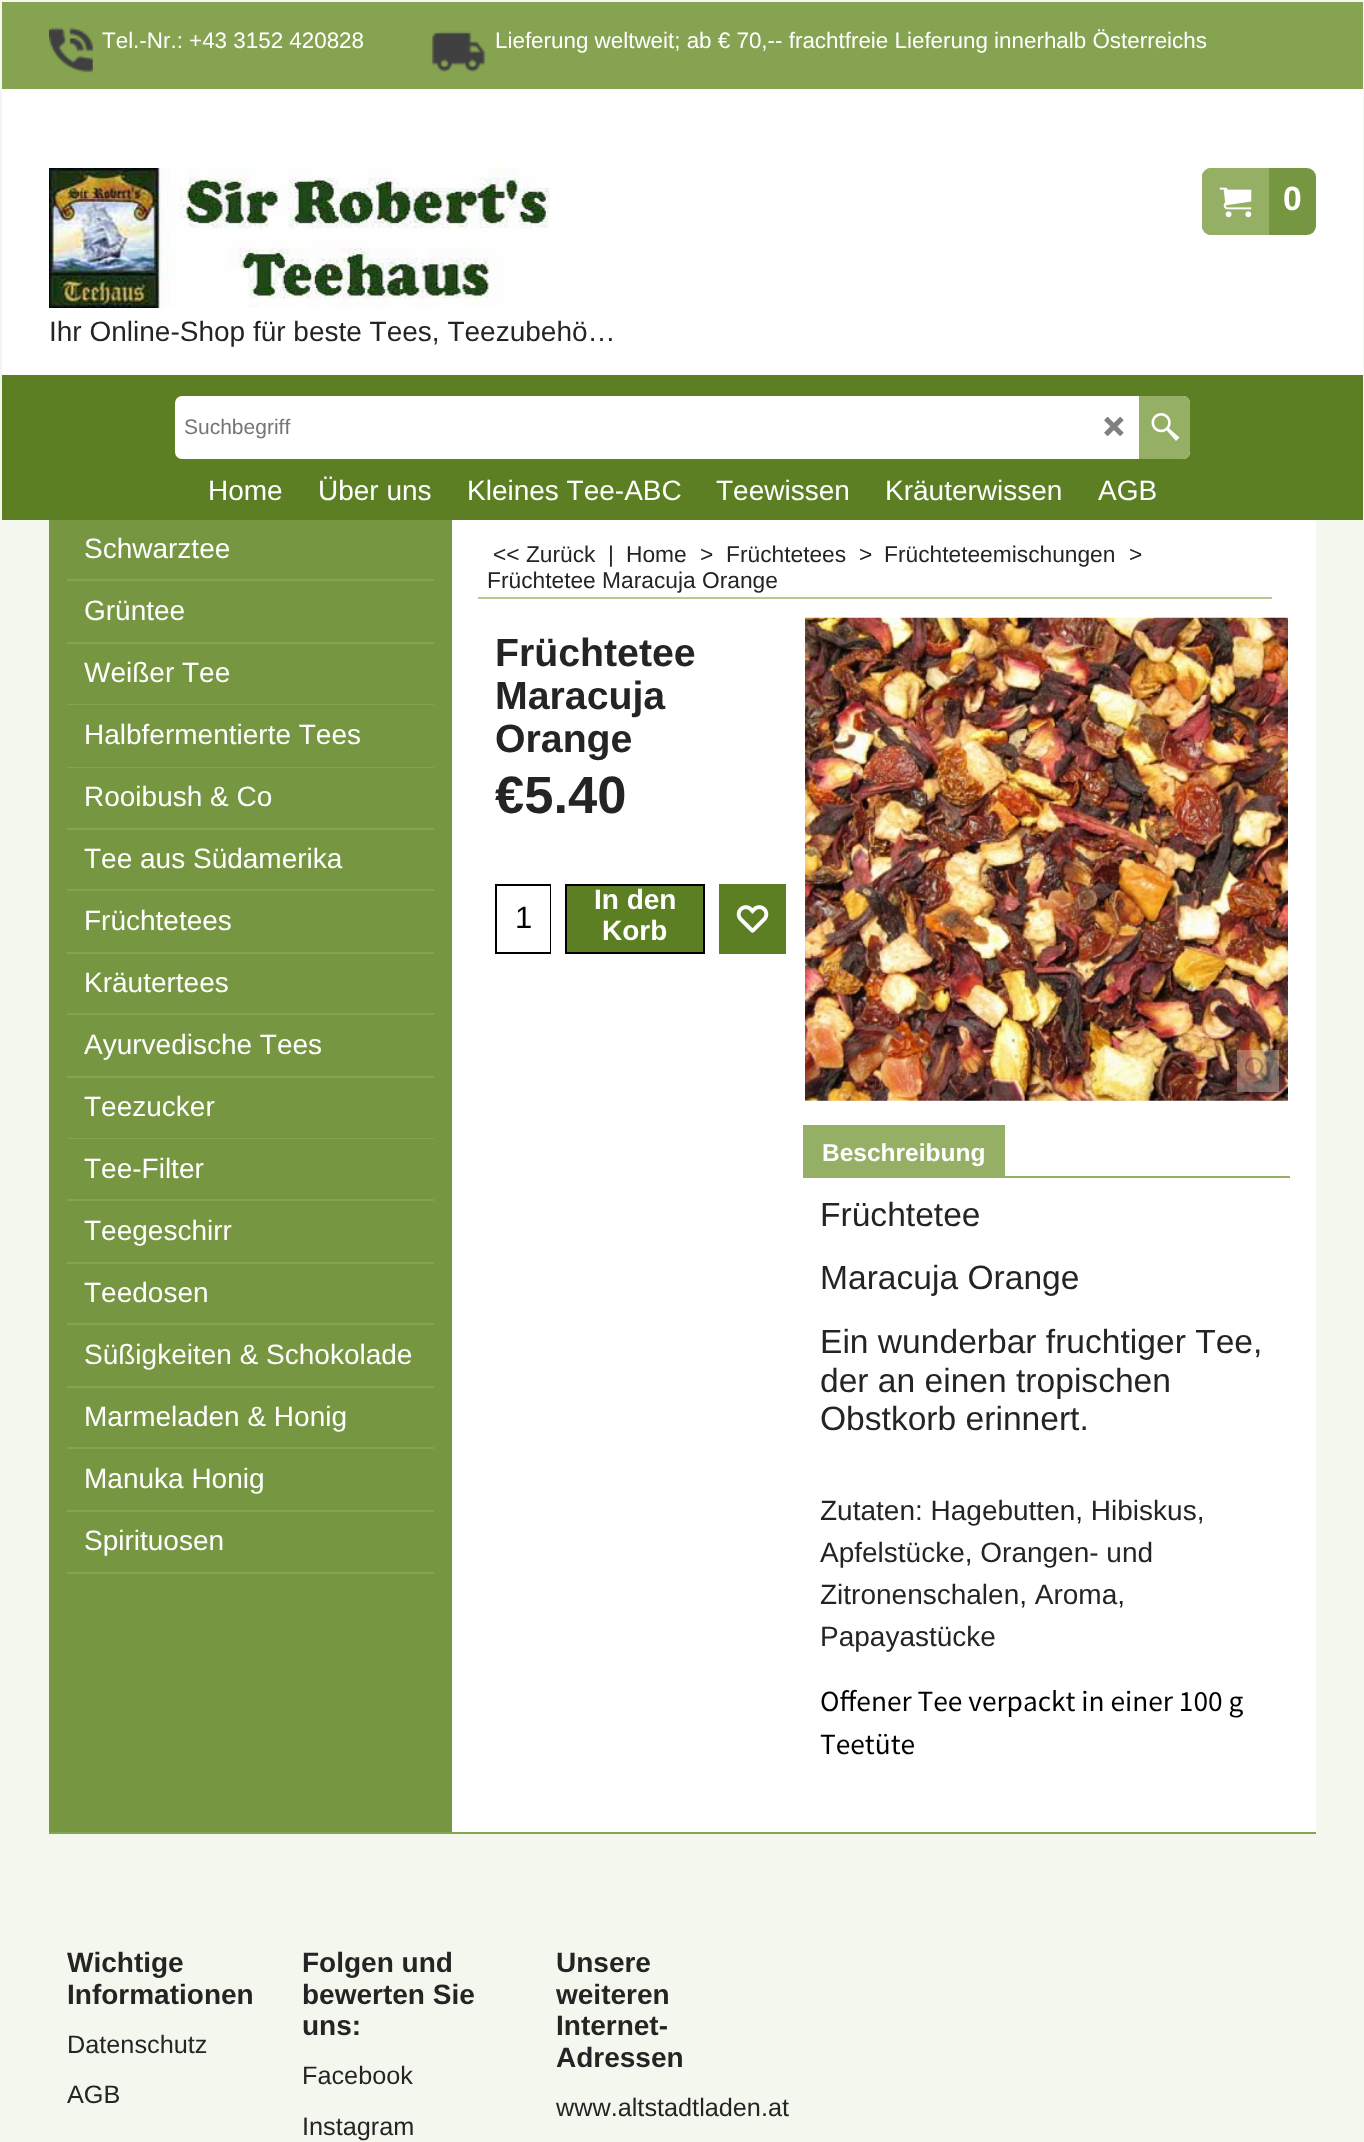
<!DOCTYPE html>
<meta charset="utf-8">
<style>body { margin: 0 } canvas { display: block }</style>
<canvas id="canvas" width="1364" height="2142"></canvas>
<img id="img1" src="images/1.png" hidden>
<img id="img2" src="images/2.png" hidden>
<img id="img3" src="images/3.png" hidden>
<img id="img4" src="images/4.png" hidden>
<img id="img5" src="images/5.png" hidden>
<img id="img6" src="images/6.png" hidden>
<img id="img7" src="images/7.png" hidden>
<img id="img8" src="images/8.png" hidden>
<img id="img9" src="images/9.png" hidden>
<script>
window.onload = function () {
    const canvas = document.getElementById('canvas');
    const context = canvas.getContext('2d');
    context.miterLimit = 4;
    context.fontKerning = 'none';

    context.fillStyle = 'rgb(244, 247, 238)';
    context.fillRect(0, 0, 1364, 2142);
    context.fillStyle = 'rgb(134, 163, 82)';
    context.fillRect(2, 2, 1361, 87);
    context.drawImage(document.getElementById('img1'), 49, 27, 44, 46);
    context.drawImage(document.getElementById('img2'), 431, 31, 55, 41);
    context.fillStyle = 'rgb(255, 255, 255)';
    context.fillRect(2, 89, 1361, 286);
    context.fillStyle = 'rgb(119, 150, 65)';
    context.beginPath();
    context.roundRect(1202, 168, 114, 67, 9);
    context.fill();
    context.fillStyle = 'rgb(149, 176, 101)';
    context.beginPath();
    context.roundRect(1203, 169, 65, 65, [8, 0, 0, 8]);
    context.fill();
    context.strokeStyle = 'rgb(149, 176, 101)';
    context.lineWidth = 2;
    context.stroke();
    context.drawImage(document.getElementById('img3'), 1219, 187, 33, 31);
    context.drawImage(document.getElementById('img4'), 49, 168, 501, 140);
    context.fillStyle = 'rgb(93, 127, 36)';
    context.fillRect(2, 375, 1361, 145);
    context.fillStyle = 'rgb(255, 255, 255)';
    context.beginPath();
    context.roundRect(175, 396, 1015, 63, 7);
    context.fill();
    context.drawImage(document.getElementById('img5'), 1104, 416, 20, 20);
    context.fillStyle = 'rgb(149, 176, 101)';
    context.beginPath();
    context.roundRect(1139, 396, 51, 63, [0, 7, 7, 0]);
    context.fill();
    context.drawImage(document.getElementById('img6'), 1151, 413, 29, 28);
    context.fillStyle = 'rgb(255, 255, 255)';
    context.fillRect(452, 520, 864, 1312);
    context.fillStyle = 'rgb(119, 150, 65)';
    context.fillRect(49, 520, 403, 1312);
    context.fillStyle = 'rgb(134, 163, 82)';
    context.fillRect(67, 579, 367, 2);
    context.fillRect(67, 642, 367, 2);
    context.fillRect(67, 704, 367, 1);
    context.fillRect(67, 767, 367, 1);
    context.fillRect(67, 828, 367, 2);
    context.fillRect(67, 889, 367, 2);
    context.fillRect(67, 952, 367, 2);
    context.fillRect(67, 1013, 367, 2);
    context.fillRect(67, 1076, 367, 2);
    context.fillRect(67, 1138, 367, 1);
    context.fillRect(67, 1199, 367, 2);
    context.fillRect(67, 1262, 367, 2);
    context.fillRect(67, 1323, 367, 2);
    context.fillRect(67, 1386, 367, 2);
    context.fillRect(67, 1447, 367, 2);
    context.fillRect(67, 1510, 367, 2);
    context.fillRect(67, 1572, 367, 2);
    context.fillStyle = 'rgb(181, 202, 145)';
    context.fillRect(478, 597, 794, 2);
    context.strokeStyle = 'rgb(0, 0, 0)';
    context.strokeRect(496, 885, 54, 68);
    context.fillStyle = 'rgb(255, 255, 255)';
    context.fillRect(549, 886, 1, 66);
    context.fillStyle = 'rgb(93, 127, 36)';
    context.beginPath();
    context.rect(566, 885, 138, 68);
    context.fill();
    context.stroke();
    context.fillRect(719, 884, 67, 70);
    context.drawImage(document.getElementById('img7'), 736, 905, 33, 28);
    context.drawImage(document.getElementById('img8'), 805, 617, 483, 484);
    context.fillStyle = 'rgba(244, 247, 238, 0.3)';
    context.fillRect(1237, 1050, 42, 42);
    context.drawImage(document.getElementById('img9'), 1244, 1057, 28, 28);
    context.fillStyle = 'rgb(149, 176, 101)';
    context.fillRect(803, 1125, 202, 53);
    context.fillRect(1005, 1176, 285, 2);
    context.fillStyle = 'rgb(134, 163, 82)';
    context.fillRect(49, 1832, 1267, 2);
    context.font = '22.4px Liberation Sans';
    context.fillStyle = 'rgb(255, 255, 255)';
    context.fillText('Tel.-Nr.: +43 3152 420828', 102, 48);
    context.fillText('Lieferung weltweit; ab € 70,-- frachtfreie Lieferung innerhalb Österreichs', 495, 48);
    context.font = 'bold 33.6px Liberation Sans';
    context.fillText('0', 1283, 210);
    context.font = '28px Liberation Sans';
    context.fillStyle = 'rgb(36, 36, 36)';
    context.fillText('Ihr Online-Shop für beste Tees, Teezubehö…', 49, 341);
    context.font = '21px Liberation Sans';
    context.fillStyle = 'rgb(117, 117, 117)';
    context.fillText('Suchbegriff', 184, 434);
    context.font = '28px Liberation Sans';
    context.fillStyle = 'rgb(255, 255, 255)';
    context.fillText('Home', 208, 500);
    context.fillText('Über uns', 318, 500);
    context.fillText('Kleines Tee-ABC', 467, 500);
    context.fillText('Teewissen', 716, 500);
    context.fillText('Kräuterwissen', 885, 500);
    context.fillText('AGB', 1098, 500);
    context.fillText('Schwarztee', 84, 558);
    context.fillText('Grüntee', 84, 620);
    context.fillText('Weißer Tee', 84, 682);
    context.fillText('Halbfermentierte Tees', 84, 744);
    context.fillText('Rooibush & Co', 84, 806);
    context.fillText('Tee aus Südamerika', 84, 868);
    context.fillText('Früchtetees', 84, 930);
    context.fillText('Kräutertees', 84, 992);
    context.fillText('Ayurvedische Tees', 84, 1054);
    context.fillText('Teezucker', 84, 1116);
    context.fillText('Tee-Filter', 84, 1178);
    context.fillText('Teegeschirr', 84, 1240);
    context.fillText('Teedosen', 84, 1302);
    context.fillText('Süßigkeiten & Schokolade', 84, 1364);
    context.fillText('Marmeladen & Honig', 84, 1426);
    context.fillText('Manuka Honig', 84, 1488);
    context.fillText('Spirituosen', 84, 1550);
    context.font = '22.75px Liberation Sans';
    context.fillStyle = 'rgb(36, 36, 36)';
    context.fillText('<< Zurück', 493, 562);
    context.fillText('|', 608, 562);
    context.fillText('Home', 626, 562);
    context.fillText('>', 700, 562);
    context.fillText('Früchtetees', 726, 562);
    context.fillText('>', 859, 562);
    context.fillText('Früchteteemischungen', 884, 562);
    context.fillText('>', 1129, 562);
    context.fillText('Früchtetee Maracuja Orange', 487, 588);
    context.font = 'bold 39.25px Liberation Sans';
    context.fillText('Früchtetee', 495, 666);
    context.fillText('Maracuja', 495, 709);
    context.fillText('Orange', 495, 752);
    context.font = 'bold 52.5px Liberation Sans';
    context.fillText('€5.40', 495, 813);
    context.font = '31px Liberation Sans';
    context.fillStyle = 'rgb(0, 0, 0)';
    context.fillText('1', 515, 928);
    context.font = 'bold 28px Liberation Sans';
    context.fillStyle = 'rgb(255, 255, 255)';
    context.fillText('In den', 594, 909);
    context.fillText('Korb', 602, 940);
    context.font = 'bold 24.5px Liberation Sans';
    context.fillText('Beschreibung', 822, 1161);
    context.font = '33.6px Liberation Sans';
    context.fillStyle = 'rgb(36, 36, 36)';
    context.fillText('Früchtetee', 820, 1226);
    context.fillText('Maracuja Orange', 820, 1289);
    context.fillText('Ein wunderbar fruchtiger Tee,', 820, 1353);
    context.fillText('der an einen tropischen', 820, 1392);
    context.fillText('Obstkorb erinnert.', 820, 1430);
    context.font = '28px Liberation Sans';
    context.fillText('Zutaten: Hagebutten, Hibiskus,', 820, 1520);
    context.fillText('Apfelstücke, Orangen- und', 820, 1562);
    context.fillText('Zitronenschalen, Aroma,', 820, 1604);
    context.fillText('Papayastücke', 820, 1646);
    context.font = '26.25px Noto Sans JP';
    context.fillStyle = 'rgb(0, 0, 0)';
    context.fillText('Offener Tee verpackt in einer 100 g', 820, 1711);
    context.fillText('Teetüte', 820, 1754);
    context.font = 'bold 28px Liberation Sans';
    context.fillStyle = 'rgb(36, 36, 36)';
    context.fillText('Wichtige', 67, 1972);
    context.fillText('Informationen', 67, 2004);
    context.font = '25.25px Liberation Sans';
    context.fillText('Datenschutz', 67, 2053);
    context.fillText('AGB', 67, 2103);
    context.font = 'bold 28px Liberation Sans';
    context.fillText('Folgen und', 302, 1972);
    context.fillText('bewerten Sie', 302, 2004);
    context.fillText('uns:', 302, 2035);
    context.font = '25.25px Liberation Sans';
    context.fillText('Facebook', 302, 2084);
    context.fillText('Instagram', 302, 2135);
    context.font = 'bold 28px Liberation Sans';
    context.fillText('Unsere', 556, 1972);
    context.fillText('weiteren', 556, 2004);
    context.fillText('Internet-', 556, 2035);
    context.fillText('Adressen', 556, 2067);
    context.font = '25.25px Liberation Sans';
    context.fillText('www.altstadtladen.at', 556, 2116);
};
</script>
